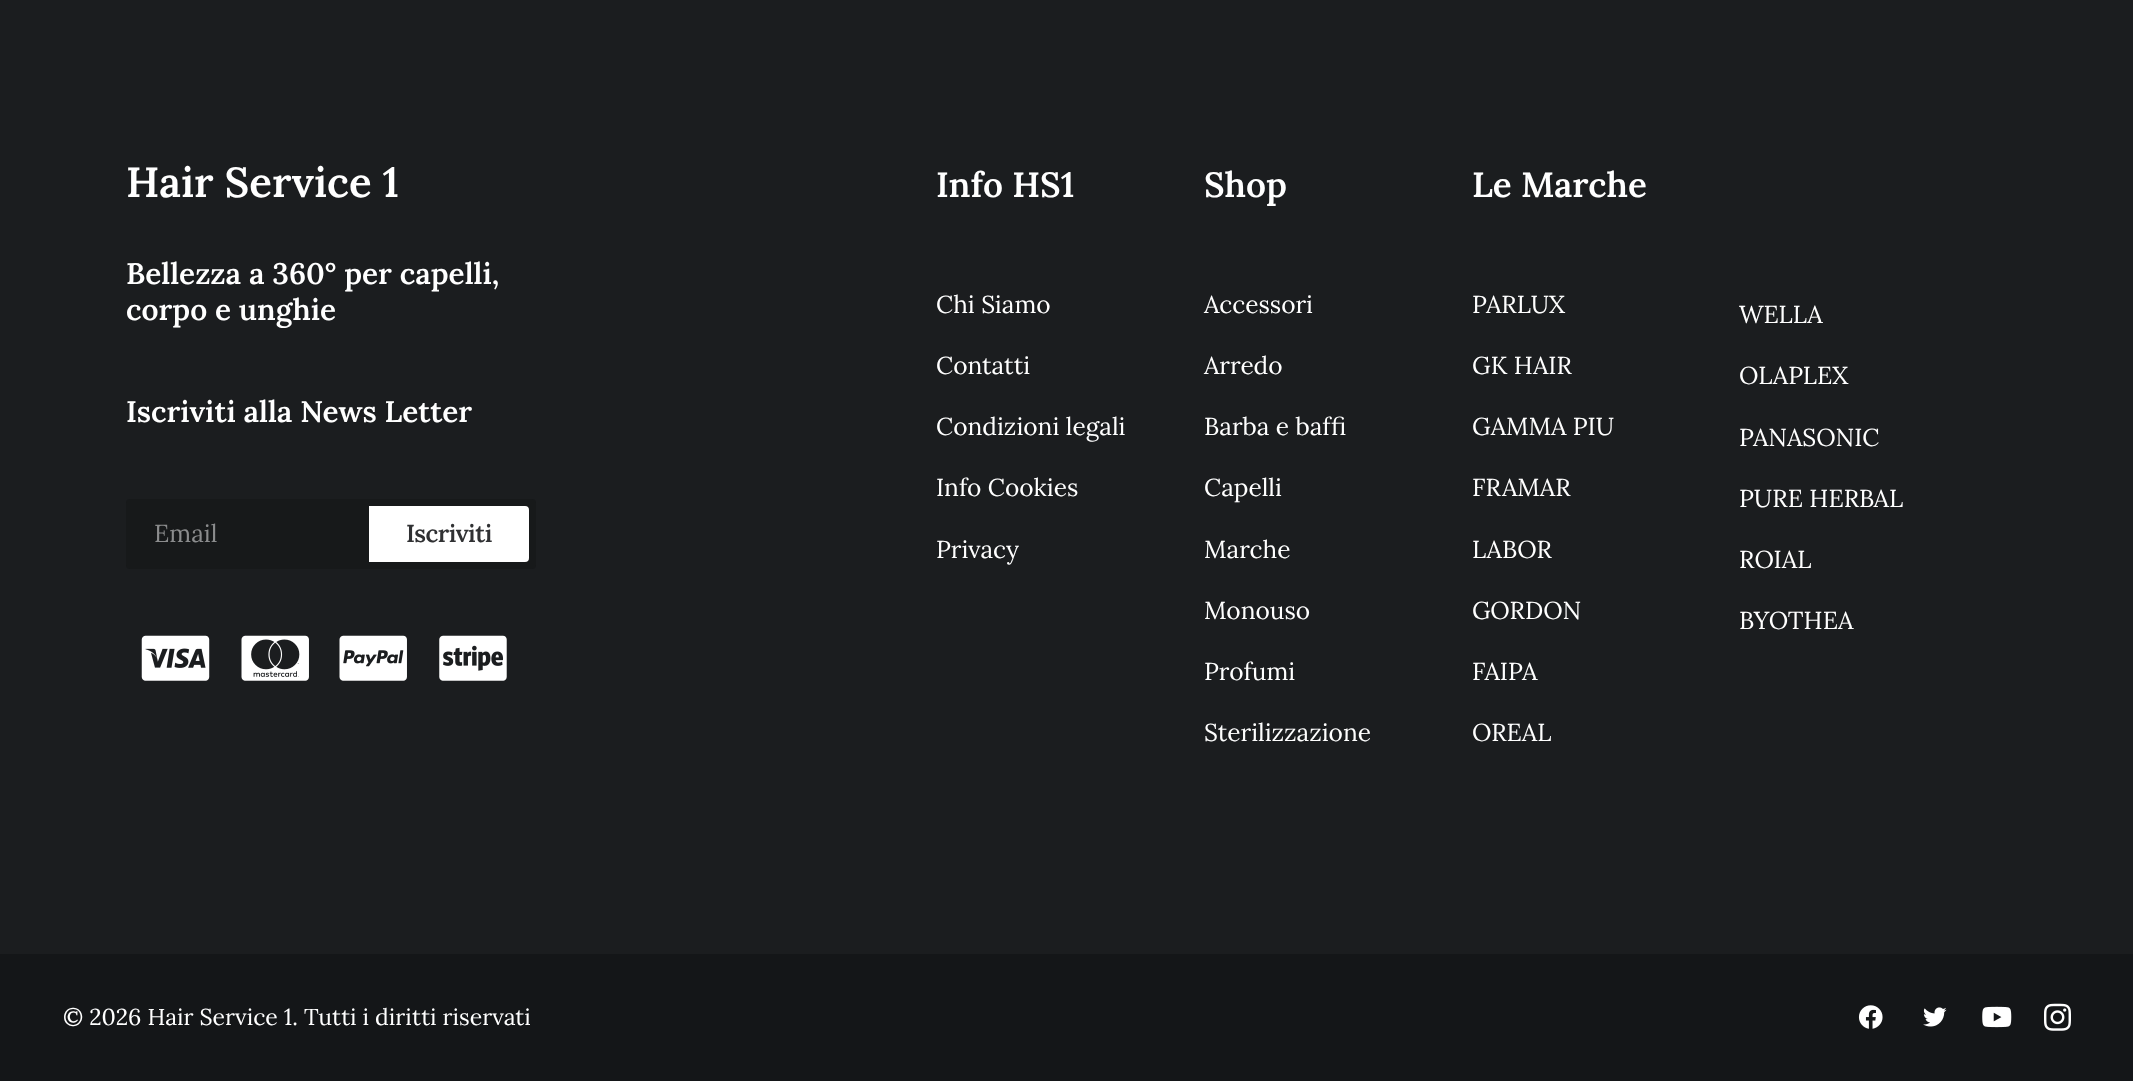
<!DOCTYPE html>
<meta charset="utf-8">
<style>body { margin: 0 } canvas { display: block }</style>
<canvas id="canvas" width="2133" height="1081"></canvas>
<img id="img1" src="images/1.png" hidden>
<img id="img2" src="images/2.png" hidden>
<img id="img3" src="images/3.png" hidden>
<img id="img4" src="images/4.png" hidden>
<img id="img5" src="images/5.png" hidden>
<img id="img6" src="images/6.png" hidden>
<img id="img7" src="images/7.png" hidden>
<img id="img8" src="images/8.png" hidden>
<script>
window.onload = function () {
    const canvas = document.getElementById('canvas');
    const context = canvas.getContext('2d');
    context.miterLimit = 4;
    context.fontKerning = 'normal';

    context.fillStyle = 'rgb(20, 22, 24)';
    context.fillRect(0, 0, 2133, 1081);
    context.fillStyle = 'rgb(27, 29, 31)';
    context.fillRect(0, 0, 2133, 954);
    context.fillStyle = 'rgb(23, 25, 26)';
    context.beginPath();
    context.roundRect(126, 499, 410, 70, 4);
    context.fill();
    context.fillStyle = 'rgb(255, 255, 255)';
    context.beginPath();
    context.roundRect(370, 507, 158, 54, [0, 3, 3, 0]);
    context.fill();
    context.strokeStyle = 'rgb(255, 255, 255)';
    context.lineWidth = 2;
    context.stroke();
    context.drawImage(document.getElementById('img1'), 141, 635, 69, 46);
    context.drawImage(document.getElementById('img2'), 241, 635, 68, 46);
    context.drawImage(document.getElementById('img3'), 339, 635, 68, 46);
    context.drawImage(document.getElementById('img4'), 439, 635, 68, 46);
    context.drawImage(document.getElementById('img5'), 1858, 1005, 25, 24);
    context.drawImage(document.getElementById('img6'), 1923, 1007, 24, 20);
    context.drawImage(document.getElementById('img7'), 1982, 1006, 30, 22);
    context.drawImage(document.getElementById('img8'), 2044, 1003, 27, 28);
    context.font = '600 42px Lora';
    context.fillText('Hair Service 1', 126, 197);
    context.font = '600 29.75px Lora';
    context.fillText('Bellezza a 360° per capelli,', 126, 284);
    context.fillText('corpo e unghie', 126, 320);
    context.fillText('Iscriviti alla News Letter', 126, 422);
    context.font = '24.5px Lora';
    context.fillStyle = 'rgb(139, 140, 141)';
    context.fillText('Email', 154, 542);
    context.letterSpacing = '-0.5px';
    context.font = '600 24.5px Lora';
    context.fillStyle = 'rgb(48, 49, 51)';
    context.fillText('Iscriviti', 406, 542);
    context.letterSpacing = '0px';
    context.font = '600 35px Lora';
    context.fillStyle = 'rgb(255, 255, 255)';
    context.fillText('Info HS1', 936, 197);
    context.font = '24.5px Lora';
    context.fillText('Chi Siamo', 936, 313);
    context.fillText('Contatti', 936, 374);
    context.fillText('Condizioni legali', 936, 435);
    context.fillText('Info Cookies', 936, 496);
    context.fillText('Privacy', 936, 558);
    context.font = '600 35px Lora';
    context.fillText('Shop', 1204, 197);
    context.font = '24.5px Lora';
    context.fillText('Accessori', 1204, 313);
    context.fillText('Arredo', 1204, 374);
    context.fillText('Barba e baffi', 1204, 435);
    context.fillText('Capelli', 1204, 496);
    context.fillText('Marche', 1204, 558);
    context.fillText('Monouso', 1204, 619);
    context.fillText('Profumi', 1204, 680);
    context.fillText('Sterilizzazione', 1204, 741);
    context.font = '600 35px Lora';
    context.fillText('Le Marche', 1472, 197);
    context.font = '24.5px Lora';
    context.fillText('PARLUX', 1472, 313);
    context.fillText('GK HAIR', 1472, 374);
    context.fillText('GAMMA PIU', 1472, 435);
    context.fillText('FRAMAR', 1472, 496);
    context.fillText('LABOR', 1472, 558);
    context.fillText('GORDON', 1472, 619);
    context.fillText('FAIPA', 1472, 680);
    context.fillText('OREAL', 1472, 741);
    context.fillText('WELLA', 1739, 323);
    context.fillText('OLAPLEX', 1739, 384);
    context.fillText('PANASONIC', 1739, 446);
    context.fillText('PURE HERBAL', 1739, 507);
    context.fillText('ROIAL', 1739, 568);
    context.fillText('BYOTHEA', 1739, 629);
    context.font = '23px Lora';
    context.fillText('© 2026 Hair Service 1. Tutti i diritti riservati', 63, 1025);
};
</script>
